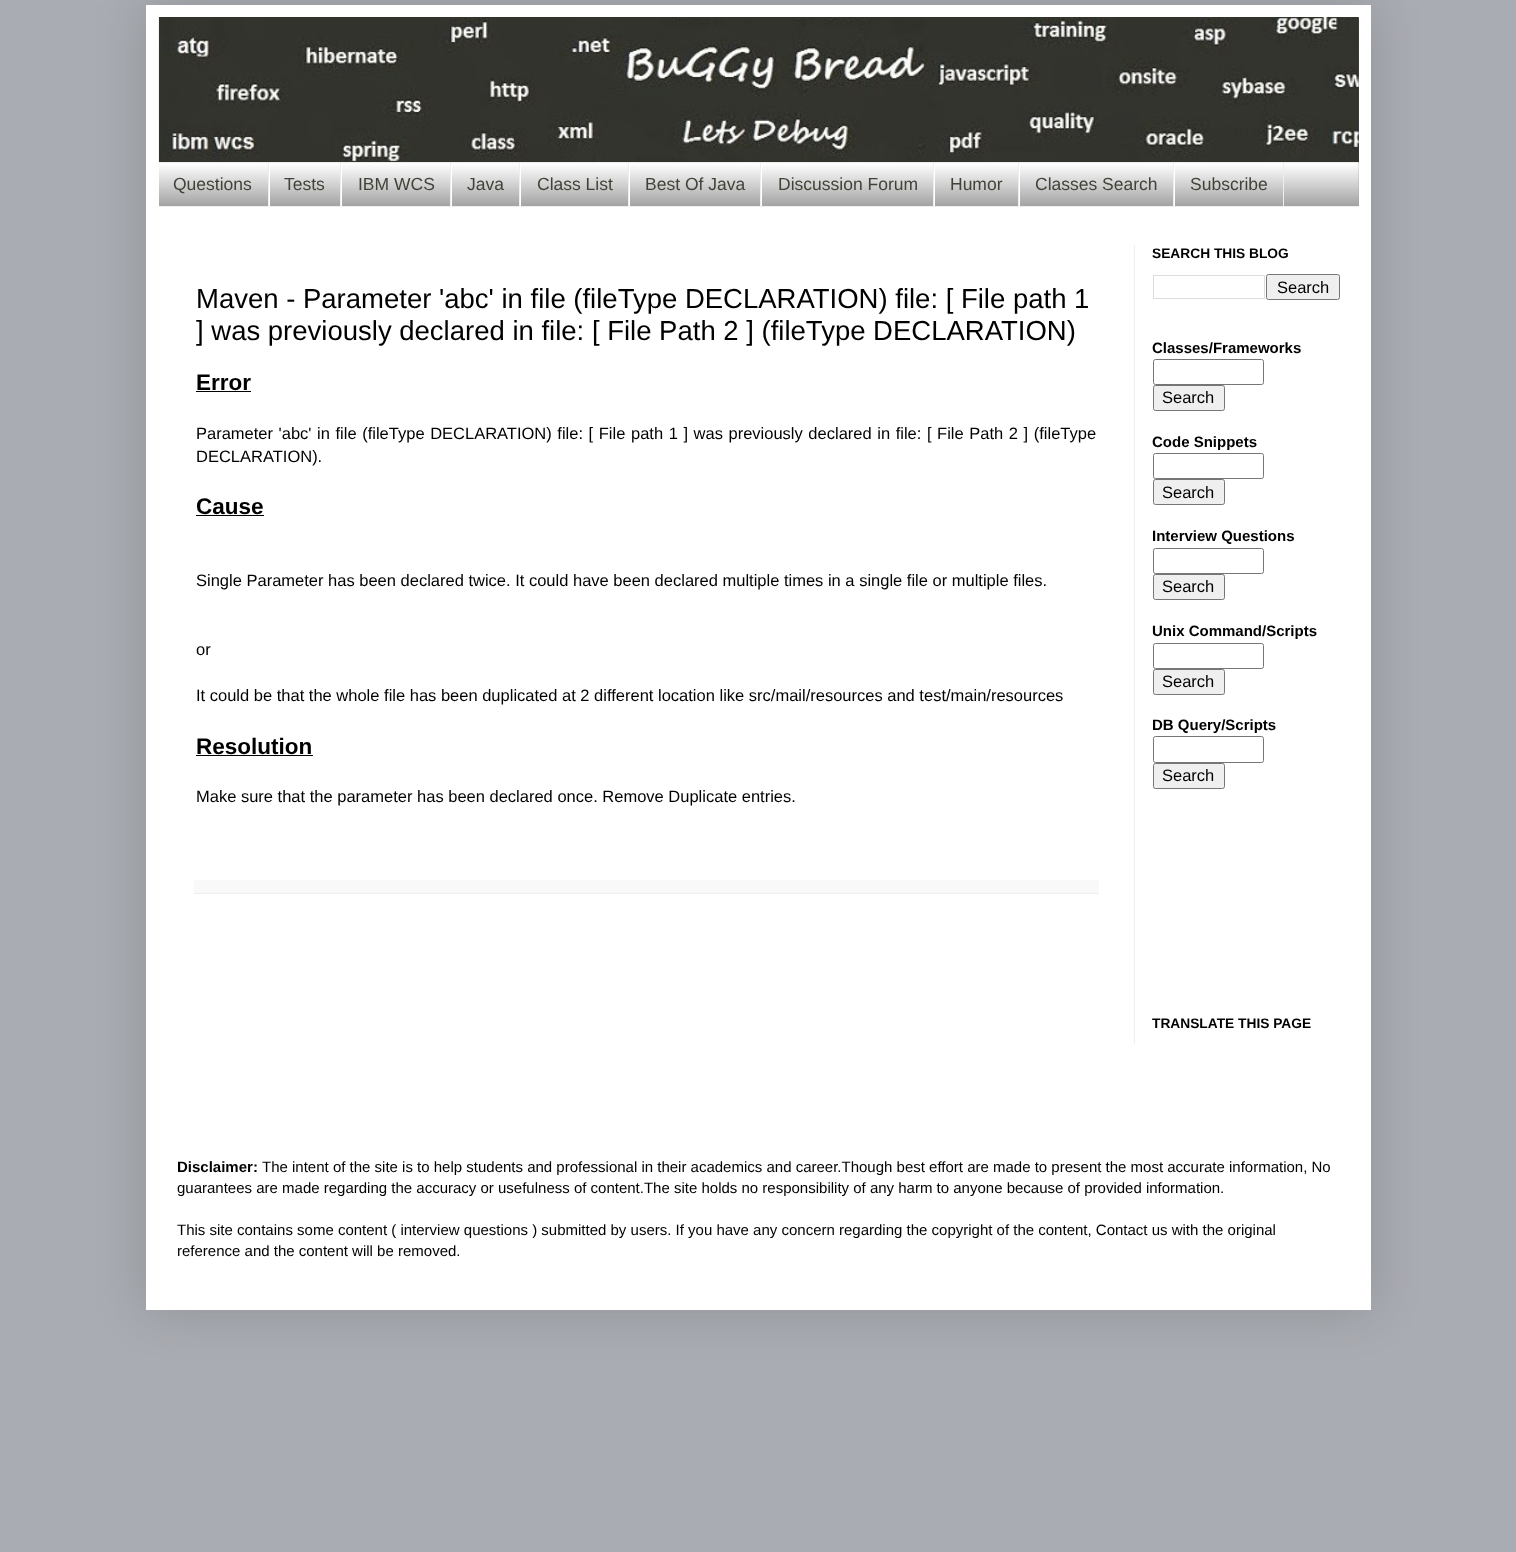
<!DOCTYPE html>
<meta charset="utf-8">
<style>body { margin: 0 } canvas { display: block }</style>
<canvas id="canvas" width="1516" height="1552"></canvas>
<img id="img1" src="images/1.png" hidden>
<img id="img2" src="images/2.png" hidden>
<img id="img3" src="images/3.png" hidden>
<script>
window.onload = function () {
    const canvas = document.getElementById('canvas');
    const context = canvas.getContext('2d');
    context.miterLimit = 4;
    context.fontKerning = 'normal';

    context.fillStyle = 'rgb(169, 172, 178)';
    context.fillRect(0, 0, 1516, 1552);
    context.fillStyle = 'rgba(0, 0, 0, 0.15)';
    context.filter = 'blur(25px)';
    context.beginPath();
    context.rect(146, 5, 1225, 1305);
    context.fill();
    context.filter = 'none';
    context.fillStyle = 'rgb(255, 255, 255)';
    context.fillRect(146, 5, 1225, 1305);
    context.fillStyle = 'rgb(63, 64, 68)';
    context.fillRect(159, 18, 1200, 145);
    context.drawImage(document.getElementById('img1'), 1358, 18, 1, 144);
    context.drawImage(document.getElementById('img2'), 158, 17, 1201, 145);
    context.fillStyle = 'rgb(153, 153, 153)';
    context.fillRect(159, 163, 1200, 43);
    context.drawImage(document.getElementById('img3'), 159, 162, 1200, 44);
    context.fillStyle = 'rgb(238, 238, 238)';
    context.fillRect(159, 206, 1200, 1);
    context.fillRect(268, 163, 1, 43);
    context.fillRect(340, 163, 1, 43);
    context.fillStyle = 'rgb(255, 255, 255)';
    context.fillRect(269, 163, 1, 43);
    context.fillStyle = 'rgb(238, 238, 238)';
    context.fillRect(450, 163, 1, 43);
    context.fillStyle = 'rgb(255, 255, 255)';
    context.fillRect(341, 163, 1, 43);
    context.fillStyle = 'rgb(238, 238, 238)';
    context.fillRect(519, 163, 1, 43);
    context.fillStyle = 'rgb(255, 255, 255)';
    context.fillRect(451, 163, 1, 43);
    context.fillStyle = 'rgb(238, 238, 238)';
    context.fillRect(628, 163, 1, 43);
    context.fillStyle = 'rgb(255, 255, 255)';
    context.fillRect(520, 163, 1, 43);
    context.fillStyle = 'rgb(238, 238, 238)';
    context.fillRect(760, 163, 1, 43);
    context.fillStyle = 'rgb(255, 255, 255)';
    context.fillRect(629, 163, 1, 43);
    context.fillStyle = 'rgb(238, 238, 238)';
    context.fillRect(933, 163, 1, 43);
    context.fillStyle = 'rgb(255, 255, 255)';
    context.fillRect(761, 163, 1, 43);
    context.fillStyle = 'rgb(238, 238, 238)';
    context.fillRect(1018, 163, 1, 43);
    context.fillStyle = 'rgb(255, 255, 255)';
    context.fillRect(934, 163, 1, 43);
    context.fillStyle = 'rgb(238, 238, 238)';
    context.fillRect(1173, 163, 1, 43);
    context.fillStyle = 'rgb(255, 255, 255)';
    context.fillRect(1019, 163, 1, 43);
    context.fillStyle = 'rgb(238, 238, 238)';
    context.fillRect(1283, 163, 1, 43);
    context.fillStyle = 'rgb(255, 255, 255)';
    context.fillRect(1174, 163, 1, 43);
    context.fillStyle = 'rgb(238, 238, 238)';
    context.fillRect(1134, 245, 1, 799);
    context.fillStyle = 'rgb(0, 0, 0)';
    context.fillRect(196, 391, 55, 1);
    context.fillRect(196, 515, 68, 1);
    context.fillRect(196, 755, 117, 1);
    context.fillStyle = 'rgb(249, 249, 249)';
    context.fillRect(194, 880, 905, 13);
    context.fillStyle = 'rgb(238, 238, 238)';
    context.fillRect(194, 893, 905, 1);
    context.strokeStyle = 'rgb(221, 221, 221)';
    context.strokeRect(1153.5, 275.5, 111, 23);
    context.fillStyle = 'rgb(239, 239, 239)';
    context.beginPath();
    context.roundRect(1266.5, 274.5, 73, 25, 2);
    context.fill();
    context.strokeStyle = 'rgb(118, 118, 118)';
    context.stroke();
    context.beginPath();
    context.roundRect(1153.5, 359.5, 110, 25, 2);
    context.stroke();
    context.beginPath();
    context.roundRect(1153.5, 385.5, 71, 25, 2);
    context.fill();
    context.stroke();
    context.beginPath();
    context.roundRect(1153.5, 453.5, 110, 25, 2);
    context.stroke();
    context.beginPath();
    context.roundRect(1153.5, 479.5, 71, 25, 2);
    context.fill();
    context.stroke();
    context.beginPath();
    context.roundRect(1153.5, 548.5, 110, 25, 2);
    context.stroke();
    context.beginPath();
    context.roundRect(1153.5, 574.5, 71, 25, 2);
    context.fill();
    context.stroke();
    context.beginPath();
    context.roundRect(1153.5, 643.5, 110, 25, 2);
    context.stroke();
    context.beginPath();
    context.roundRect(1153.5, 669.5, 71, 25, 2);
    context.fill();
    context.stroke();
    context.beginPath();
    context.roundRect(1153.5, 736.5, 110, 26, 2);
    context.stroke();
    context.beginPath();
    context.roundRect(1153.5, 763.5, 71, 25, 2);
    context.fill();
    context.stroke();
    context.font = '17.5px Liberation Sans';
    context.fillStyle = 'rgb(66, 67, 56)';
    context.fillText('Questions', 173, 190);
    context.fillText('Tests', 284, 190);
    context.fillText('IBM WCS', 358, 190);
    context.fillText('Java', 467, 190);
    context.fillText('Class List', 537, 190);
    context.fillText('Best Of Java', 645, 190);
    context.fillText('Discussion Forum', 778, 190);
    context.fillText('Humor', 950, 190);
    context.fillText('Classes Search', 1035, 190);
    context.fillText('Subscribe', 1190, 190);
    context.font = '27.5px Liberation Sans';
    context.fillStyle = 'rgb(0, 0, 0)';
    context.fillText('Maven - Parameter \'abc\' in file (fileType DECLARATION) file: [ File path 1', 196, 308);
    context.fillText('] was previously declared in file: [ File Path 2 ] (fileType DECLARATION)', 196, 340);
    context.font = 'bold 22.5px Liberation Sans';
    context.fillText('Error', 196, 390);
    context.wordSpacing = '1px';
    context.font = '16.5px Liberation Sans';
    context.fillText('Parameter \'abc\' in file (fileType DECLARATION) file: [ File path 1 ] was previously declared in file: [ File Path 2 ] (fileType', 196, 439);
    context.wordSpacing = '0px';
    context.fillText('DECLARATION).', 196, 462);
    context.font = 'bold 22.5px Liberation Sans';
    context.fillText('Cause', 196, 514);
    context.font = '16.5px Liberation Sans';
    context.fillText('Single Parameter has been declared twice. It could have been declared multiple times in a single file or multiple files.', 196, 586);
    context.fillText('or', 196, 655);
    context.fillText('It could be that the whole file has been duplicated at 2 different location like src/mail/resources and test/main/resources', 196, 701);
    context.font = 'bold 22.5px Liberation Sans';
    context.fillText('Resolution', 196, 754);
    context.font = '16.5px Liberation Sans';
    context.fillText('Make sure that the parameter has been declared once. Remove Duplicate entries.', 196, 802);
    context.font = 'bold 13.75px Liberation Sans';
    context.fillText('SEARCH THIS BLOG', 1152, 258);
    context.font = '16.5px Liberation Sans';
    context.fillText('Search', 1277, 293);
    context.font = 'bold 15px Liberation Sans';
    context.fillText('Classes/Frameworks', 1152, 353);
    context.font = '16.5px Liberation Sans';
    context.fillText('Search', 1162, 403);
    context.font = 'bold 15px Liberation Sans';
    context.fillText('Code Snippets', 1152, 447);
    context.font = '16.5px Liberation Sans';
    context.fillText('Search', 1162, 498);
    context.font = 'bold 15px Liberation Sans';
    context.fillText('Interview Questions', 1152, 541);
    context.font = '16.5px Liberation Sans';
    context.fillText('Search', 1162, 592);
    context.font = 'bold 15px Liberation Sans';
    context.fillText('Unix Command/Scripts', 1152, 636);
    context.font = '16.5px Liberation Sans';
    context.fillText('Search', 1162, 687);
    context.font = 'bold 15px Liberation Sans';
    context.fillText('DB Query/Scripts', 1152, 730);
    context.font = '16.5px Liberation Sans';
    context.fillText('Search', 1162, 781);
    context.font = 'bold 13.75px Liberation Sans';
    context.fillText('TRANSLATE THIS PAGE', 1152, 1028);
    context.font = 'bold 15px Liberation Sans';
    context.fillText('Disclaimer:', 177, 1172);
    context.font = '15px Liberation Sans';
    context.fillText('The intent of the site is to help students and professional in their academics and career.Though best effort are made to present the most accurate information, No', 262, 1172);
    context.fillText('guarantees are made regarding the accuracy or usefulness of content.The site holds no responsibility of any harm to anyone because of provided information.', 177, 1193);
    context.fillText('This site contains some content ( interview questions ) submitted by users. If you have any concern regarding the copyright of the content, Contact us with the original', 177, 1235);
    context.fillText('reference and the content will be removed.', 177, 1256);
};
</script>
